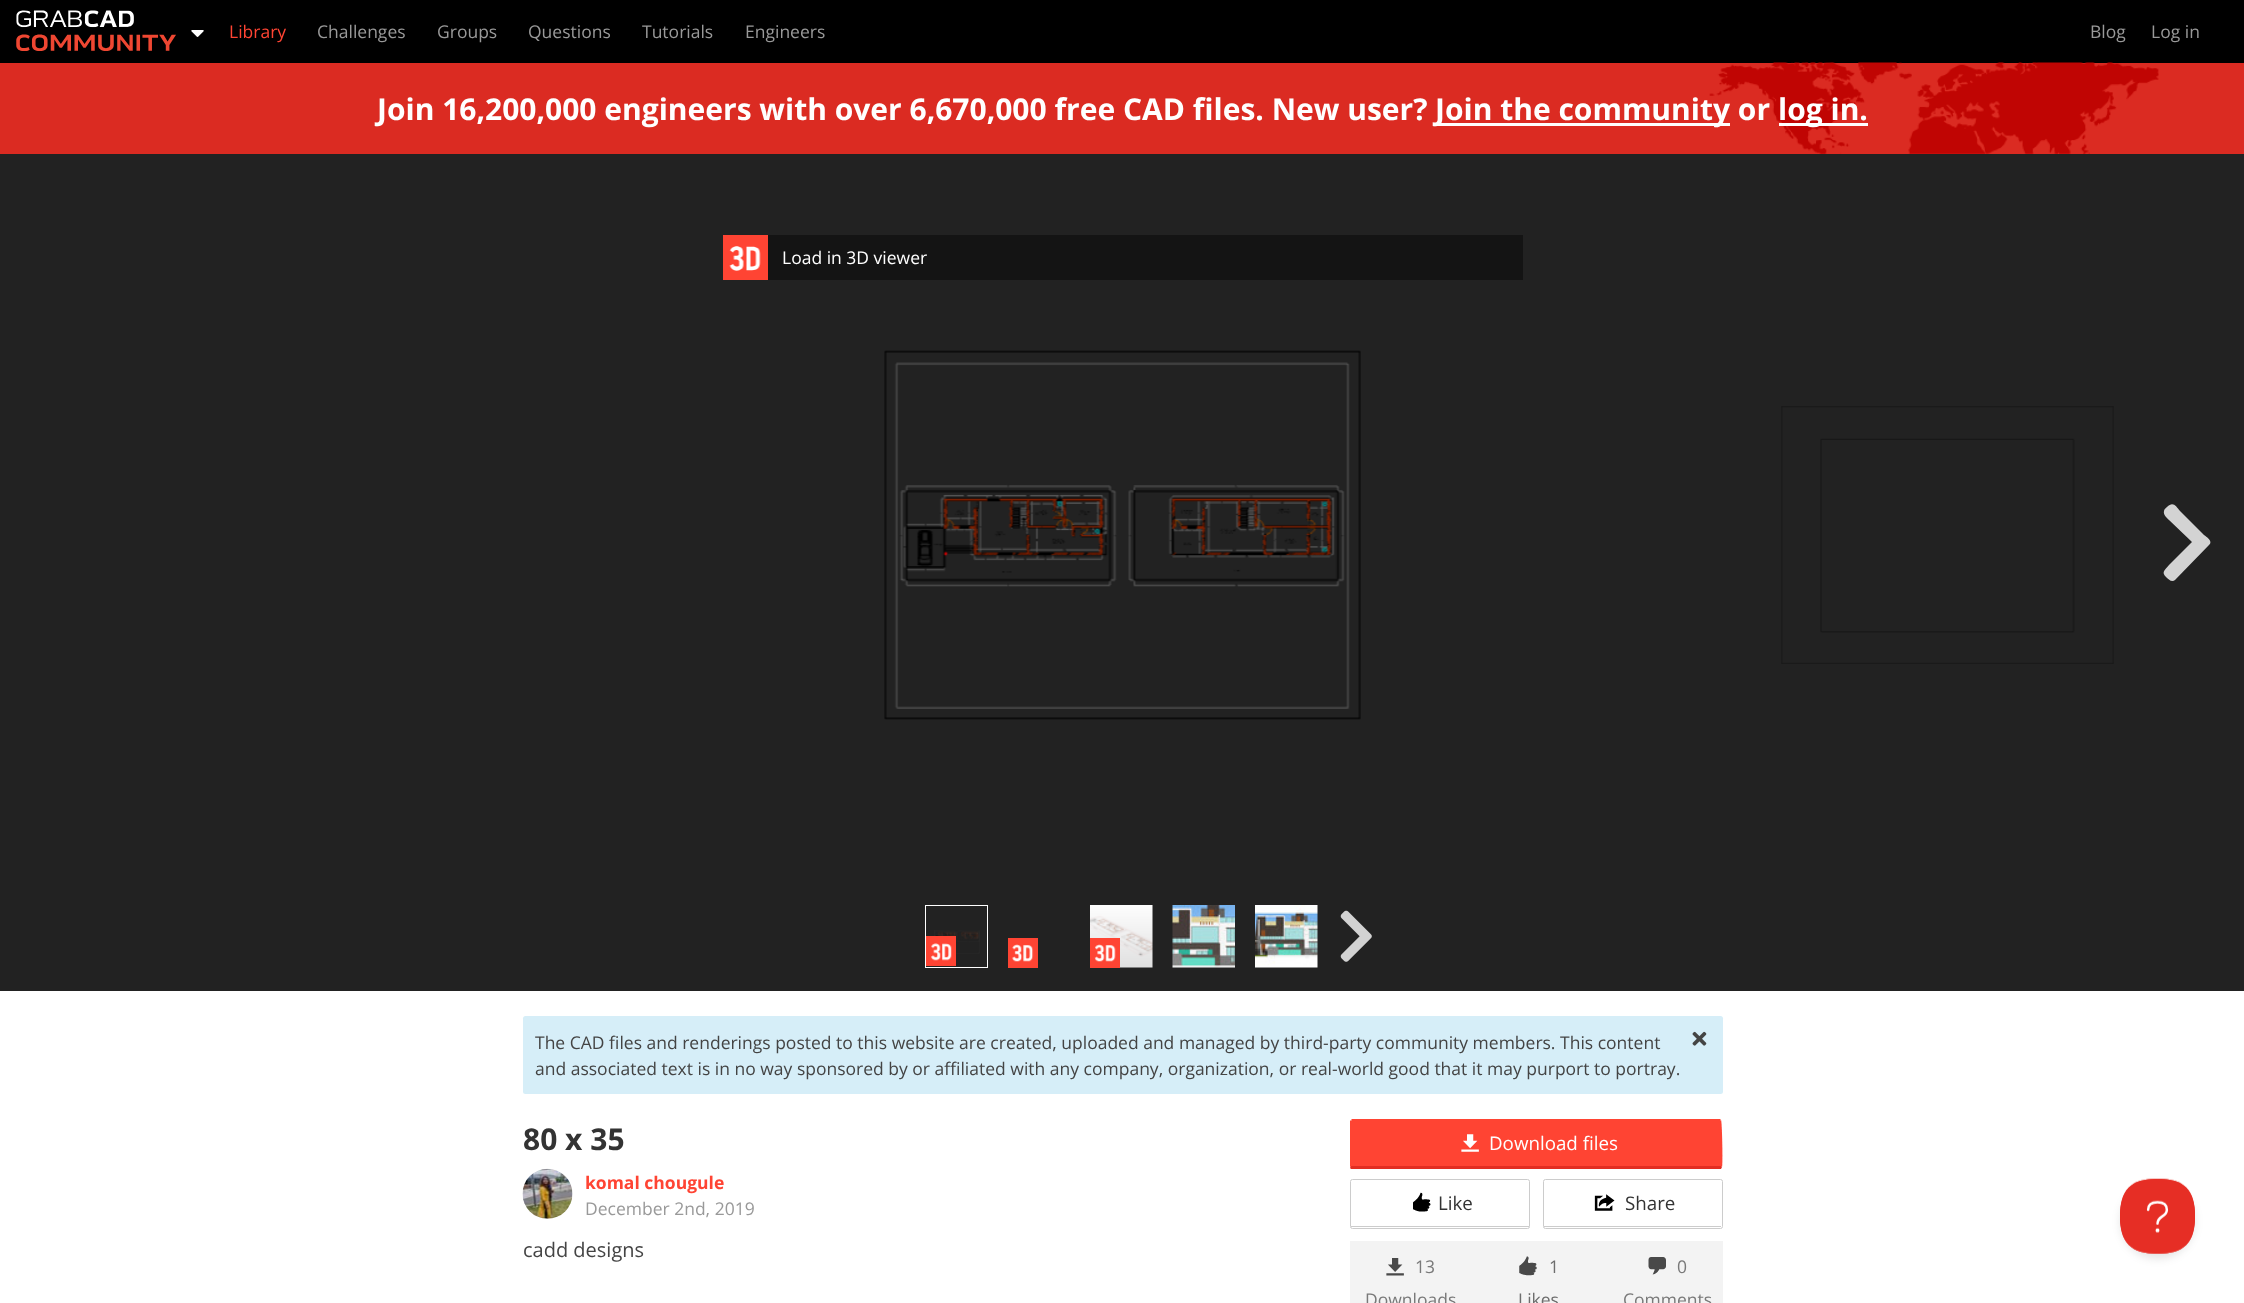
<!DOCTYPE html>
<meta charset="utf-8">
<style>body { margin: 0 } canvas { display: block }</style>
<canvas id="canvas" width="2244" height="1303"></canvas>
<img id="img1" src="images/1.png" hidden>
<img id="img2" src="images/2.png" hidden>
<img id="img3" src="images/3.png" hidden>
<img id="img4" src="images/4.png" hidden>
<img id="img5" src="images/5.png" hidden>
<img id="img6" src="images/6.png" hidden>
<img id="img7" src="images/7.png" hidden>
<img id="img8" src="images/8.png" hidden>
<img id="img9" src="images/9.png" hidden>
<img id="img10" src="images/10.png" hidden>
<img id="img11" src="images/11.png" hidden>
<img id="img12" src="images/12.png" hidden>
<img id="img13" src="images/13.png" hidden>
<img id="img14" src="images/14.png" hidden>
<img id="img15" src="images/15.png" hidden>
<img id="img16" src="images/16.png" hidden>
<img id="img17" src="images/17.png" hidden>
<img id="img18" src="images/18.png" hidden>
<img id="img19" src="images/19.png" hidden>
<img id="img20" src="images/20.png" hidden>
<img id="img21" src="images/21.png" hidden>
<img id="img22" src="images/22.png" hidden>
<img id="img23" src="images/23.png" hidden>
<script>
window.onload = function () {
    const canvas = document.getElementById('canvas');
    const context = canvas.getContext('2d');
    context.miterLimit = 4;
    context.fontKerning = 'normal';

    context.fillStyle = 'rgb(0, 0, 0)';
    context.fillRect(0, 0, 2244, 1303);
    context.drawImage(document.getElementById('img1'), 16, 10, 160, 41);
    context.drawImage(document.getElementById('img2'), 191, 30, 13, 7);
    context.fillStyle = 'rgb(255, 255, 255)';
    context.fillRect(0, 991, 2244, 312);
    context.fillStyle = 'rgb(219, 43, 34)';
    context.fillRect(0, 63, 2244, 91);
    context.drawImage(document.getElementById('img3'), 1709, 62, 450, 92);
    context.fillStyle = 'rgb(255, 255, 255)';
    context.fillRect(1435, 123, 295, 3);
    context.fillRect(1779, 123, 89, 3);
    context.fillStyle = 'rgb(34, 34, 34)';
    context.fillRect(0, 154, 2244, 837);
    context.fillStyle = 'rgb(20, 20, 20)';
    context.fillRect(768, 235, 755, 45);
    context.fillStyle = 'rgb(255, 68, 51)';
    context.fillRect(723, 235, 45, 45);
    context.drawImage(document.getElementById('img4'), 729, 246, 32, 25);
    context.drawImage(document.getElementById('img5'), 884, 350, 477, 370);
    context.drawImage(document.getElementById('img6'), 1781, 406, 333, 258);
    context.fillStyle = 'rgb(211, 211, 211)';
    context.beginPath();
    context.moveTo(2209, 545);
    context.lineTo(2175, 580);
    context.bezierCurveTo(2172, 583, 2168, 579, 2166, 577);
    context.bezierCurveTo(2161, 572, 2165, 570, 2169, 565);
    context.lineTo(2192, 542);
    context.lineTo(2169, 520);
    context.bezierCurveTo(2167, 518, 2163, 515, 2164, 511);
    context.bezierCurveTo(2164, 509, 2166, 508, 2167, 507);
    context.bezierCurveTo(2173, 501, 2176, 506, 2180, 511);
    context.lineTo(2203, 534);
    context.bezierCurveTo(2205, 536, 2214, 541, 2209, 545);
    context.closePath();
    context.fill();
    context.strokeStyle = 'rgb(255, 255, 255)';
    context.strokeRect(925.5, 905.5, 62, 62);
    context.drawImage(document.getElementById('img7'), 934, 930, 46, 24);
    context.fillStyle = 'rgb(255, 68, 51)';
    context.fillRect(926, 936, 30, 30);
    context.drawImage(document.getElementById('img8'), 931, 943, 21, 18);
    context.fillRect(1008, 938, 30, 30);
    context.drawImage(document.getElementById('img9'), 1012, 944, 22, 18);
    context.drawImage(document.getElementById('img10'), 1090, 905, 63, 63);
    context.fillRect(1090, 938, 30, 30);
    context.drawImage(document.getElementById('img11'), 1094, 944, 22, 18);
    context.drawImage(document.getElementById('img12'), 1172, 905, 63, 63);
    context.drawImage(document.getElementById('img13'), 1255, 905, 63, 63);
    context.drawImage(document.getElementById('img14'), 1340, 910, 32, 52);
    context.fillStyle = 'rgb(214, 238, 248)';
    context.beginPath();
    context.roundRect(523, 1016, 1200, 78, 2.5);
    context.fill();
    context.drawImage(document.getElementById('img15'), 1692, 1031, 15, 15);
    context.drawImage(document.getElementById('img16'), 522, 1168, 51, 51);
    context.fillStyle = 'rgb(255, 68, 51)';
    context.beginPath();
    context.moveTo(1352, 1120);
    context.lineTo(1720, 1120);
    context.bezierCurveTo(1721, 1120, 1721, 1121, 1721, 1121);
    context.lineTo(1721, 1166);
    context.lineTo(1351, 1166);
    context.lineTo(1351, 1121);
    context.bezierCurveTo(1351, 1121, 1352, 1120, 1352, 1120);
    context.closePath();
    context.fill();
    context.beginPath();
    context.moveTo(1352, 1119);
    context.lineTo(1351, 1120);
    context.lineTo(1352, 1120);
    context.lineTo(1720, 1120);
    context.lineTo(1721, 1120);
    context.lineTo(1720, 1119);
    context.closePath();
    context.fill();
    context.beginPath();
    context.moveTo(1722, 1167);
    context.bezierCurveTo(1723, 1164, 1722, 1120, 1721, 1120);
    context.lineTo(1721, 1166);
    context.closePath();
    context.fill();
    context.fillStyle = 'rgb(226, 46, 34)';
    context.beginPath();
    context.moveTo(1351, 1169);
    context.lineTo(1350, 1168);
    context.lineTo(1351, 1166);
    context.lineTo(1721, 1166);
    context.lineTo(1722, 1167);
    context.lineTo(1721, 1169);
    context.closePath();
    context.fill();
    context.fillStyle = 'rgb(255, 68, 51)';
    context.beginPath();
    context.moveTo(1350, 1121);
    context.lineTo(1350, 1168);
    context.lineTo(1351, 1166);
    context.lineTo(1351, 1121);
    context.lineTo(1352, 1120);
    context.lineTo(1351, 1120);
    context.closePath();
    context.fill();
    context.drawImage(document.getElementById('img17'), 1461, 1134, 18, 18);
    context.beginPath();
    context.roundRect(1350.5, 1179.5, 179, 49, 2);
    context.strokeStyle = 'rgb(204, 204, 204)';
    context.stroke();
    context.fillStyle = 'rgb(204, 204, 204)';
    context.fillRect(1351, 1226, 178, 1);
    context.drawImage(document.getElementById('img18'), 1413, 1192, 18, 20);
    context.beginPath();
    context.roundRect(1543.5, 1179.5, 179, 49, 2);
    context.stroke();
    context.fillRect(1544, 1226, 177, 1);
    context.drawImage(document.getElementById('img19'), 1594, 1194, 21, 17);
    context.fillStyle = 'rgb(243, 243, 243)';
    context.fillRect(1350, 1241, 373, 62);
    context.drawImage(document.getElementById('img20'), 1386, 1258, 18, 18);
    context.drawImage(document.getElementById('img21'), 1519, 1256, 18, 20);
    context.drawImage(document.getElementById('img22'), 1648, 1257, 18, 18);
    context.fillStyle = 'rgba(0, 0, 0, 0.1)';
    context.filter = 'blur(4.5px)';
    context.beginPath();
    context.roundRect(2120, 1184, 75, 75, 37.5);
    context.fill();
    context.filter = 'none';
    context.drawImage(document.getElementById('img23'), 2120, 1178, 75, 76);
    context.font = '17.5px Open Sans';
    context.fillStyle = 'rgb(255, 68, 51)';
    context.fillText('Library', 229, 38);
    context.fillStyle = 'rgb(153, 153, 153)';
    context.fillText('Challenges', 317, 38);
    context.fillText('Groups', 437, 38);
    context.fillText('Questions', 528, 38);
    context.fillText('Tutorials', 642, 38);
    context.fillText('Engineers', 745, 38);
    context.fillText('Blog', 2090, 38);
    context.fillText('Log in', 2151, 38);
    context.font = 'bold 30px Open Sans';
    context.fillStyle = 'rgb(255, 255, 255)';
    context.fillText('Join 16,200,000 engineers with over 6,670,000 free CAD files. New user?', 377, 120);
    context.fillText('Join the community or', 1435, 120);
    context.fillText('log in.', 1778, 120);
    context.font = '17.5px Open Sans';
    context.fillText('Load in 3D viewer', 782, 264);
    context.fillStyle = 'rgb(68, 68, 68)';
    context.fillText('The CAD files and renderings posted to this website are created, uploaded and managed by third-party community members. This content', 535, 1049);
    context.fillText('and associated text is in no way sponsored by or affiliated with any company, organization, or real-world good that it may purport to portray.', 535, 1075);
    context.font = 'bold 30px Open Sans';
    context.fillStyle = 'rgb(51, 51, 51)';
    context.fillText('80 x 35', 523, 1150);
    context.font = 'bold 17.5px Open Sans';
    context.fillStyle = 'rgb(255, 68, 51)';
    context.fillText('komal chougule', 585, 1189);
    context.font = '17.5px Open Sans';
    context.fillStyle = 'rgb(153, 153, 153)';
    context.fillText('December 2nd, 2019', 585, 1215);
    context.font = '20px Open Sans';
    context.fillStyle = 'rgb(68, 68, 68)';
    context.fillText('cadd designs', 523, 1257);
    context.font = '18.75px Open Sans';
    context.fillStyle = 'rgb(255, 255, 255)';
    context.fillText('Download files', 1489, 1150);
    context.fillStyle = 'rgb(51, 51, 51)';
    context.fillText('Like', 1438, 1210);
    context.fillText('Share', 1625, 1210);
    context.font = '17.5px Open Sans';
    context.fillStyle = 'rgb(121, 121, 121)';
    context.fillText('13', 1415, 1273);
    context.fillText('Downloads', 1365, 1306);
    context.fillStyle = 'rgb(109, 109, 109)';
    context.fillText('1', 1549, 1273);
    context.fillText('Likes', 1518, 1306);
    context.fillStyle = 'rgb(121, 121, 121)';
    context.fillText('0', 1677, 1273);
    context.fillText('Comments', 1623, 1306);
};
</script>
